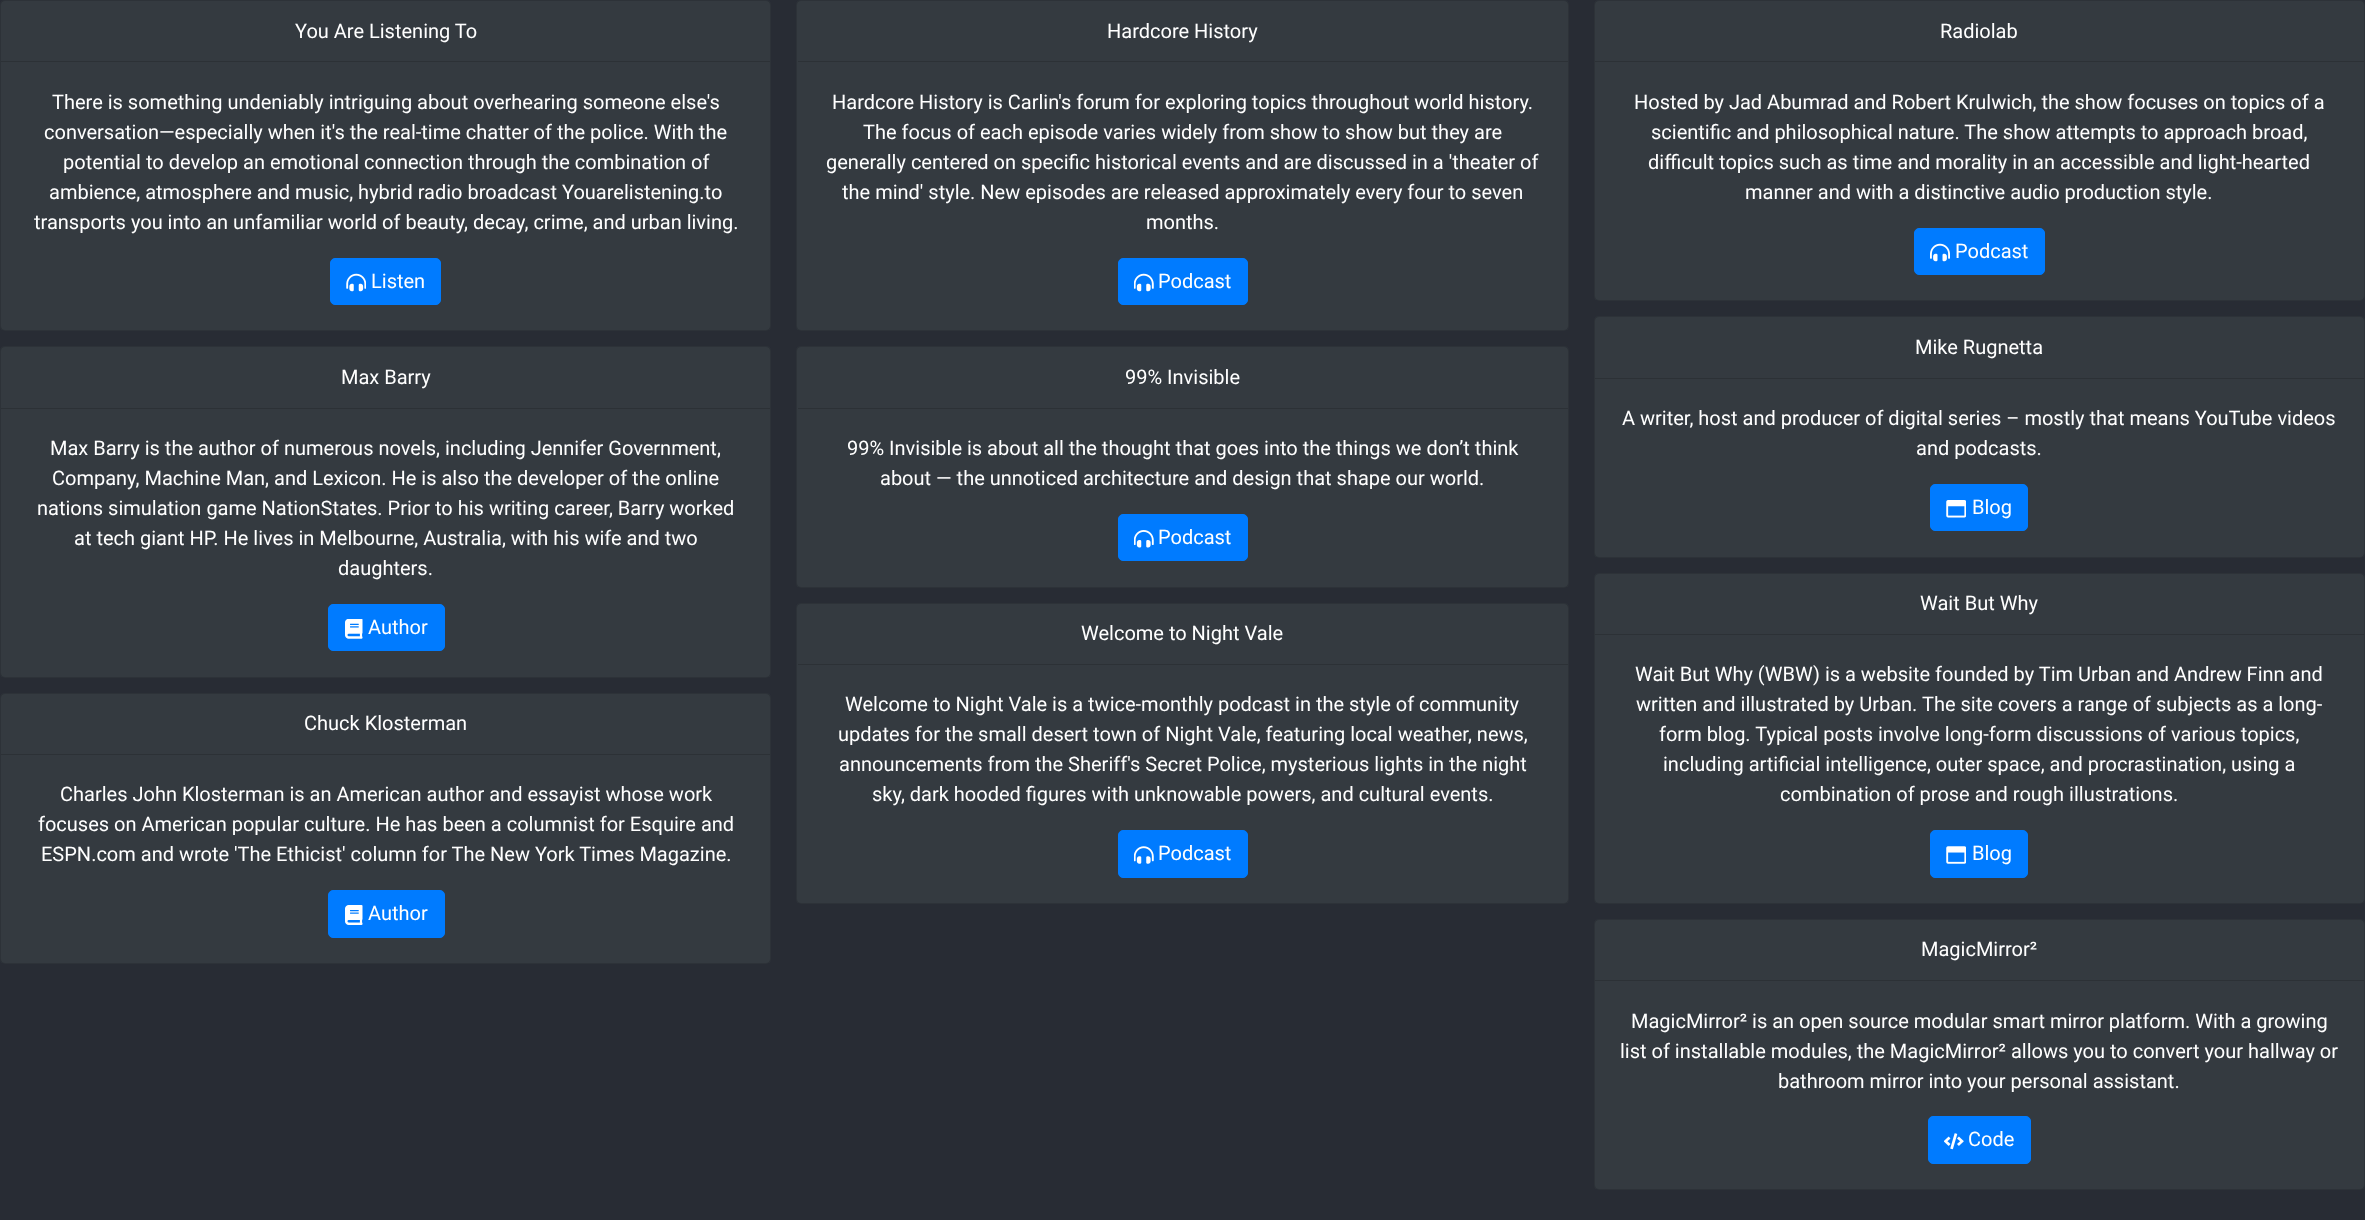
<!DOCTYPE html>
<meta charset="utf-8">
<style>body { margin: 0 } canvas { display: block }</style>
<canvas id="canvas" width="2365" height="1220"></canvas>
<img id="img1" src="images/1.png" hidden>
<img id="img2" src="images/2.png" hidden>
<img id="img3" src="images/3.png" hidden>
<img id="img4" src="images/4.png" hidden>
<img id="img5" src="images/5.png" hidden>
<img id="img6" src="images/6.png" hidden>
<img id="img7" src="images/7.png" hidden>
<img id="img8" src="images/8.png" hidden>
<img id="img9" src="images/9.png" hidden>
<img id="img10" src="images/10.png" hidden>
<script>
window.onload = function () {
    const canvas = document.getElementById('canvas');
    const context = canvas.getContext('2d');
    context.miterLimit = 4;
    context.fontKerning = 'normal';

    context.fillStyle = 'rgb(40, 44, 52)';
    context.fillRect(0, 0, 2365, 1220);
    context.fillStyle = 'rgb(52, 58, 64)';
    context.beginPath();
    context.roundRect(0, 0, 771, 331, 5);
    context.fill();
    context.beginPath();
    context.roundRect(0.5, 0.5, 770, 330, 4.5);
    context.strokeStyle = 'rgba(0, 0, 0, 0.12)';
    context.stroke();
    context.fillStyle = 'rgb(44, 49, 54)';
    context.fillRect(1, 61, 769, 1);
    context.fillStyle = 'rgb(0, 123, 255)';
    context.beginPath();
    context.roundRect(330.5, 258.5, 110, 46, 4.5);
    context.fill();
    context.strokeStyle = 'rgb(0, 123, 255)';
    context.stroke();
    context.drawImage(document.getElementById('img1'), 346, 273, 20, 19);
    context.fillStyle = 'rgb(52, 58, 64)';
    context.beginPath();
    context.roundRect(796, 0, 773, 331, 5);
    context.fill();
    context.beginPath();
    context.roundRect(796.5, 0.5, 772, 330, 4.5);
    context.strokeStyle = 'rgba(0, 0, 0, 0.12)';
    context.stroke();
    context.fillStyle = 'rgb(44, 49, 54)';
    context.fillRect(798, 61, 770, 1);
    context.fillStyle = 'rgb(0, 123, 255)';
    context.beginPath();
    context.roundRect(1118.5, 258.5, 129, 46, 4.5);
    context.fill();
    context.strokeStyle = 'rgb(0, 123, 255)';
    context.stroke();
    context.drawImage(document.getElementById('img2'), 1134, 273, 20, 19);
    context.fillStyle = 'rgb(52, 58, 64)';
    context.beginPath();
    context.roundRect(1594, 0, 771, 301, 5);
    context.fill();
    context.beginPath();
    context.roundRect(1594.5, 0.5, 770, 300, 4.5);
    context.strokeStyle = 'rgba(0, 0, 0, 0.12)';
    context.stroke();
    context.fillStyle = 'rgb(44, 49, 54)';
    context.fillRect(1595, 61, 769, 1);
    context.fillStyle = 'rgb(0, 123, 255)';
    context.beginPath();
    context.roundRect(1914.5, 228.5, 130, 46, 4.5);
    context.fill();
    context.strokeStyle = 'rgb(0, 123, 255)';
    context.stroke();
    context.drawImage(document.getElementById('img3'), 1930, 243, 20, 19);
    context.fillStyle = 'rgb(52, 58, 64)';
    context.beginPath();
    context.roundRect(0, 346, 771, 332, 5);
    context.fill();
    context.beginPath();
    context.roundRect(0.5, 346.5, 770, 331, 4.5);
    context.strokeStyle = 'rgba(0, 0, 0, 0.12)';
    context.stroke();
    context.fillStyle = 'rgb(44, 49, 54)';
    context.fillRect(1, 408, 769, 1);
    context.fillStyle = 'rgb(0, 123, 255)';
    context.beginPath();
    context.roundRect(328.5, 604.5, 116, 46, 4.5);
    context.fill();
    context.strokeStyle = 'rgb(0, 123, 255)';
    context.stroke();
    context.drawImage(document.getElementById('img4'), 345, 619, 18, 20);
    context.fillStyle = 'rgb(52, 58, 64)';
    context.beginPath();
    context.roundRect(796, 346, 773, 242, 5);
    context.fill();
    context.beginPath();
    context.roundRect(796.5, 346.5, 772, 241, 4.5);
    context.strokeStyle = 'rgba(0, 0, 0, 0.12)';
    context.stroke();
    context.fillStyle = 'rgb(44, 49, 54)';
    context.fillRect(798, 408, 770, 1);
    context.fillStyle = 'rgb(0, 123, 255)';
    context.beginPath();
    context.roundRect(1118.5, 514.5, 129, 46, 4.5);
    context.fill();
    context.strokeStyle = 'rgb(0, 123, 255)';
    context.stroke();
    context.drawImage(document.getElementById('img5'), 1134, 530, 20, 18);
    context.fillStyle = 'rgb(52, 58, 64)';
    context.beginPath();
    context.roundRect(1594, 316, 771, 242, 5);
    context.fill();
    context.beginPath();
    context.roundRect(1594.5, 316.5, 770, 241, 4.5);
    context.strokeStyle = 'rgba(0, 0, 0, 0.12)';
    context.stroke();
    context.fillStyle = 'rgb(44, 49, 54)';
    context.fillRect(1595, 378, 769, 1);
    context.fillStyle = 'rgb(0, 123, 255)';
    context.beginPath();
    context.roundRect(1930.5, 484.5, 97, 46, 4.5);
    context.fill();
    context.strokeStyle = 'rgb(0, 123, 255)';
    context.stroke();
    context.drawImage(document.getElementById('img6'), 1946, 500, 20, 18);
    context.fillStyle = 'rgb(52, 58, 64)';
    context.beginPath();
    context.roundRect(0, 693, 771, 271, 5);
    context.fill();
    context.beginPath();
    context.roundRect(0.5, 693.5, 770, 270, 4.5);
    context.strokeStyle = 'rgba(0, 0, 0, 0.12)';
    context.stroke();
    context.fillStyle = 'rgb(44, 49, 54)';
    context.fillRect(1, 754, 769, 1);
    context.fillStyle = 'rgb(0, 123, 255)';
    context.beginPath();
    context.roundRect(328.5, 890.5, 116, 47, 4.5);
    context.fill();
    context.strokeStyle = 'rgb(0, 123, 255)';
    context.stroke();
    context.drawImage(document.getElementById('img7'), 345, 905, 18, 20);
    context.fillStyle = 'rgb(52, 58, 64)';
    context.beginPath();
    context.roundRect(796, 603, 773, 301, 5);
    context.fill();
    context.beginPath();
    context.roundRect(796.5, 603.5, 772, 300, 4.5);
    context.strokeStyle = 'rgba(0, 0, 0, 0.12)';
    context.stroke();
    context.fillStyle = 'rgb(44, 49, 54)';
    context.fillRect(798, 664, 770, 1);
    context.fillStyle = 'rgb(0, 123, 255)';
    context.beginPath();
    context.roundRect(1118.5, 830.5, 129, 47, 4.5);
    context.fill();
    context.strokeStyle = 'rgb(0, 123, 255)';
    context.stroke();
    context.drawImage(document.getElementById('img8'), 1134, 846, 20, 18);
    context.fillStyle = 'rgb(52, 58, 64)';
    context.beginPath();
    context.roundRect(1594, 573, 771, 331, 5);
    context.fill();
    context.beginPath();
    context.roundRect(1594.5, 573.5, 770, 330, 4.5);
    context.strokeStyle = 'rgba(0, 0, 0, 0.12)';
    context.stroke();
    context.fillStyle = 'rgb(44, 49, 54)';
    context.fillRect(1595, 634, 769, 1);
    context.fillStyle = 'rgb(0, 123, 255)';
    context.beginPath();
    context.roundRect(1930.5, 830.5, 97, 47, 4.5);
    context.fill();
    context.strokeStyle = 'rgb(0, 123, 255)';
    context.stroke();
    context.drawImage(document.getElementById('img9'), 1946, 846, 20, 18);
    context.fillStyle = 'rgb(52, 58, 64)';
    context.beginPath();
    context.roundRect(1594, 919, 771, 271, 5);
    context.fill();
    context.beginPath();
    context.roundRect(1594.5, 919.5, 770, 270, 4.5);
    context.strokeStyle = 'rgba(0, 0, 0, 0.12)';
    context.stroke();
    context.fillStyle = 'rgb(44, 49, 54)';
    context.fillRect(1595, 980, 769, 1);
    context.fillStyle = 'rgb(0, 123, 255)';
    context.beginPath();
    context.roundRect(1928.5, 1116.5, 102, 47, 4.5);
    context.fill();
    context.strokeStyle = 'rgb(0, 123, 255)';
    context.stroke();
    context.drawImage(document.getElementById('img10'), 1944, 1133, 20, 17);
    context.font = '20px Roboto';
    context.fillStyle = 'rgb(255, 255, 255)';
    context.fillText('You Are Listening To', 295, 38);
    context.fillText('There is something undeniably intriguing about overhearing someone else\'s', 52, 109);
    context.fillText('conversation—especially when it\'s the real-time chatter of the police. With the', 44, 139);
    context.fillText('potential to develop an emotional connection through the combination of', 63, 169);
    context.fillText('ambience, atmosphere and music, hybrid radio broadcast Youarelistening.to', 49, 199);
    context.fillText('transports you into an unfamiliar world of beauty, decay, crime, and urban living.', 34, 229);
    context.fillText('Listen', 371, 288);
    context.fillText('Hardcore History', 1107, 38);
    context.fillText('Hardcore History is Carlin\'s forum for exploring topics throughout world history.', 832, 109);
    context.fillText('The focus of each episode varies widely from show to show but they are', 863, 139);
    context.fillText('generally centered on specific historical events and are discussed in a \'theater of', 826, 169);
    context.fillText('the mind\' style. New episodes are released approximately every four to seven', 842, 199);
    context.fillText('months.', 1146, 229);
    context.fillText('Podcast', 1158, 288);
    context.fillText('Radiolab', 1940, 38);
    context.fillText('Hosted by Jad Abumrad and Robert Krulwich, the show focuses on topics of a', 1634, 109);
    context.fillText('scientific and philosophical nature. The show attempts to approach broad,', 1651, 139);
    context.fillText('difficult topics such as time and morality in an accessible and light-hearted', 1648, 169);
    context.fillText('manner and with a distinctive audio production style.', 1745, 199);
    context.fillText('Podcast', 1955, 258);
    context.fillText('Max Barry', 341, 384);
    context.fillText('Max Barry is the author of numerous novels, including Jennifer Government,', 50, 455);
    context.fillText('Company, Machine Man, and Lexicon. He is also the developer of the online', 52, 485);
    context.fillText('nations simulation game NationStates. Prior to his writing career, Barry worked', 37, 515);
    context.fillText('at tech giant HP. He lives in Melbourne, Australia, with his wife and two', 74, 545);
    context.fillText('daughters.', 338, 575);
    context.fillText('Author', 368, 634);
    context.fillText('99% Invisible', 1125, 384);
    context.fillText('99% Invisible is about all the thought that goes into the things we don’t think', 847, 455);
    context.fillText('about — the unnoticed architecture and design that shape our world.', 880, 485);
    context.fillText('Podcast', 1158, 544);
    context.fillText('Mike Rugnetta', 1915, 354);
    context.fillText('A writer, host and producer of digital series – mostly that means YouTube videos', 1622, 425);
    context.fillText('and podcasts.', 1916, 455);
    context.fillText('Blog', 1972, 514);
    context.fillText('Chuck Klosterman', 304, 730);
    context.fillText('Charles John Klosterman is an American author and essayist whose work', 60, 801);
    context.fillText('focuses on American popular culture. He has been a columnist for Esquire and', 38, 831);
    context.fillText('ESPN.com and wrote \'The Ethicist\' column for The New York Times Magazine.', 41, 861);
    context.fillText('Author', 368, 920);
    context.fillText('Welcome to Night Vale', 1081, 640);
    context.fillText('Welcome to Night Vale is a twice-monthly podcast in the style of community', 845, 711);
    context.fillText('updates for the small desert town of Night Vale, featuring local weather, news,', 838, 741);
    context.fillText('announcements from the Sheriff\'s Secret Police, mysterious lights in the night', 839, 771);
    context.fillText('sky, dark hooded figures with unknowable powers, and cultural events.', 872, 801);
    context.fillText('Podcast', 1158, 860);
    context.fillText('Wait But Why', 1920, 610);
    context.fillText('Wait But Why (WBW) is a website founded by Tim Urban and Andrew Finn and', 1635, 681);
    context.fillText('written and illustrated by Urban. The site covers a range of subjects as a long-', 1636, 711);
    context.fillText('form blog. Typical posts involve long-form discussions of various topics,', 1659, 741);
    context.fillText('including artificial intelligence, outer space, and procrastination, using a', 1663, 771);
    context.fillText('combination of prose and rough illustrations.', 1780, 801);
    context.fillText('Blog', 1972, 860);
    context.fillText('MagicMirror²', 1921, 956);
    context.fillText('MagicMirror² is an open source modular smart mirror platform. With a growing', 1631, 1028);
    context.fillText('list of installable modules, the MagicMirror² allows you to convert your hallway or', 1620, 1058);
    context.fillText('bathroom mirror into your personal assistant.', 1778, 1088);
    context.fillText('Code', 1968, 1146);
};
</script>
